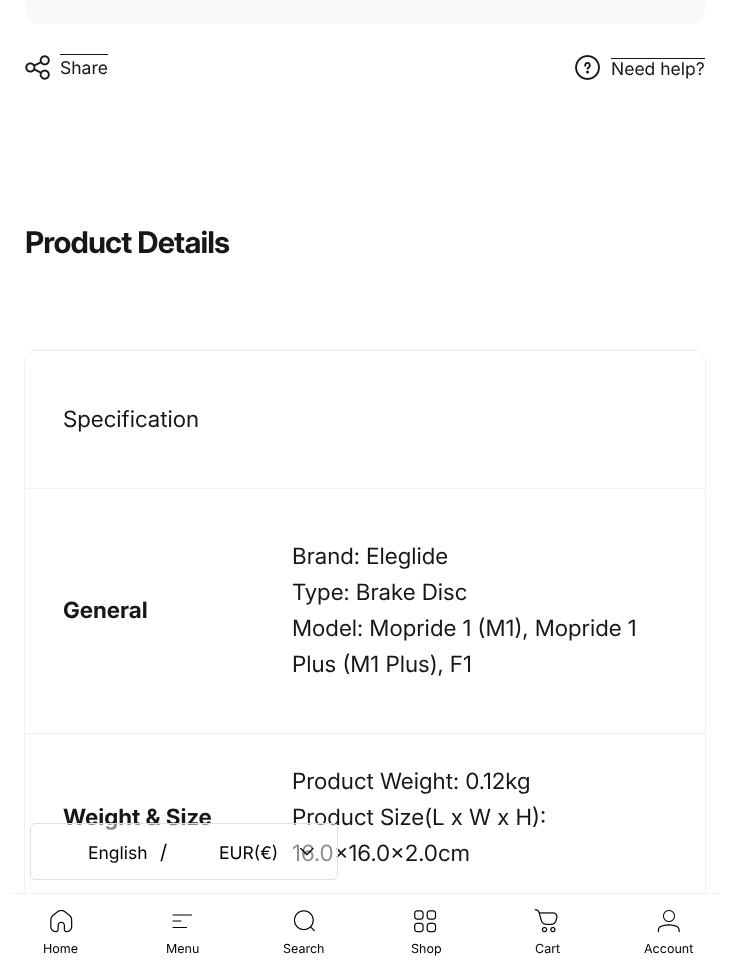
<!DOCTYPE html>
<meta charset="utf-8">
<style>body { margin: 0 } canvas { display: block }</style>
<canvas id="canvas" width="730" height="968"></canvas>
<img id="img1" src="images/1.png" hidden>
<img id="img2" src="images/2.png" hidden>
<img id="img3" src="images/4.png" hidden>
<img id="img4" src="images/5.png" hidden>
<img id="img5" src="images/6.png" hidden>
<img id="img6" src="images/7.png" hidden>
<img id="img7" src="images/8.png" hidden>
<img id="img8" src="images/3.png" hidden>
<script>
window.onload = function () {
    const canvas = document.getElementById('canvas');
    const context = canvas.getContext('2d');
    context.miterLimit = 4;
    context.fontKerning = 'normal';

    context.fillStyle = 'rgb(255, 255, 255)';
    context.fillRect(0, 0, 730, 968);
    context.fillStyle = 'rgb(249, 249, 249)';
    context.beginPath();
    context.moveTo(25, -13);
    context.lineTo(705, -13);
    context.lineTo(705, 11);
    context.bezierCurveTo(705, 18, 699, 24, 692, 24);
    context.lineTo(38, 24);
    context.bezierCurveTo(31, 24, 25, 18, 25, 11);
    context.closePath();
    context.fill();
    context.drawImage(document.getElementById('img1'), 25, 55, 25, 25);
    context.fillStyle = 'rgb(23, 23, 23)';
    context.fillRect(60, 54, 48, 1);
    context.drawImage(document.getElementById('img2'), 575, 55, 25, 25);
    context.fillRect(611, 58, 94, 1);
    context.beginPath();
    context.roundRect(24.5, 349.5, 681, 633, 13.5);
    context.strokeStyle = 'rgb(241, 241, 241)';
    context.stroke();
    context.fillStyle = 'rgba(23, 23, 23, 0.06)';
    context.fillRect(34, 350, 662, 1);
    context.fillStyle = 'rgb(241, 241, 241)';
    context.fillRect(25, 488, 680, 1);
    context.fillRect(25, 733, 680, 1);
    context.fillStyle = 'rgb(255, 255, 255)';
    context.beginPath();
    context.moveTo(20, 893);
    context.lineTo(710, 893);
    context.bezierCurveTo(721, 893, 730, 902, 730, 913);
    context.lineTo(730, 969);
    context.lineTo(0, 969);
    context.lineTo(0, 913);
    context.bezierCurveTo(0, 902, 9, 893, 20, 893);
    context.closePath();
    context.fill();
    context.fillStyle = 'rgb(240, 240, 240)';
    context.fillRect(10, 893, 710, 1);
    context.drawImage(document.getElementById('img3'), 50, 909, 23, 24);
    context.beginPath();
    context.moveTo(173, 915);
    context.lineTo(191.5, 915);
    context.moveTo(173, 921);
    context.lineTo(181, 921);
    context.moveTo(173, 927.5);
    context.lineTo(186.5, 927.5);
    context.strokeStyle = 'rgb(0, 0, 0)';
    context.lineWidth = 1.2;
    context.lineCap = 'round';
    context.lineJoin = 'round';
    context.stroke();
    context.drawImage(document.getElementById('img4'), 293, 910, 22, 22);
    context.drawImage(document.getElementById('img5'), 414, 910, 23, 23);
    context.drawImage(document.getElementById('img6'), 534, 909, 24, 24);
    context.drawImage(document.getElementById('img7'), 657, 910, 23, 23);
    context.font = '17.5px Inter';
    context.fillStyle = 'rgb(23, 23, 23)';
    context.fillText('Share', 60, 74);
    context.fillText('Need help?', 611, 75);
    context.letterSpacing = '-0.9px';
    context.font = 'bold 30px "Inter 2"';
    context.fillText('Product Details', 25, 253);
    context.letterSpacing = '0px';
    context.font = '22.5px "Inter 2"';
    context.fillText('Specification', 63, 427);
    context.font = 'bold 22.5px Inter';
    context.fillText('General', 63, 618);
    context.font = '22.5px "Inter 2"';
    context.fillText('Brand: Eleglide', 292, 564);
    context.fillText('Type: Brake Disc', 292, 600);
    context.fillText('Model: Mopride 1 (M1), Mopride 1', 292, 636);
    context.fillText('Plus (M1 Plus), F1', 292, 672);
    context.font = 'bold 22.5px Inter';
    context.fillText('Weight & Size', 63, 825);
    context.font = '22.5px "Inter 2"';
    context.fillText('Product Weight: 0.12kg', 292, 789);
    context.fillText('Product Size(L x W x H):', 292, 825);
    context.fillText('16.0×16.0×2.0cm', 292, 861);
    context.fillStyle = 'rgba(255, 255, 255, 0.5)';
    context.beginPath();
    context.roundRect(30.5, 823.5, 307, 56, 4.5);
    context.fill();
    context.strokeStyle = 'rgb(224, 224, 224)';
    context.lineWidth = 1;
    context.lineJoin = 'miter';
    context.stroke();
    context.font = '17.5px Inter';
    context.fillStyle = 'rgb(0, 0, 0)';
    context.fillText('English', 88, 859);
    context.font = '20px "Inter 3"';
    context.fillText('/', 160, 859);
    context.font = '17.5px Inter';
    context.fillText('EUR(€)', 219, 859);
    context.drawImage(document.getElementById('img8'), 300, 847, 14, 9);
    context.font = '12.5px Inter';
    context.fillText('Home', 43, 953);
    context.fillText('Menu', 166, 953);
    context.fillText('Search', 283, 953);
    context.fillText('Shop', 411, 953);
    context.fillText('Cart', 535, 953);
    context.fillText('Account', 644, 953);
};
</script>
